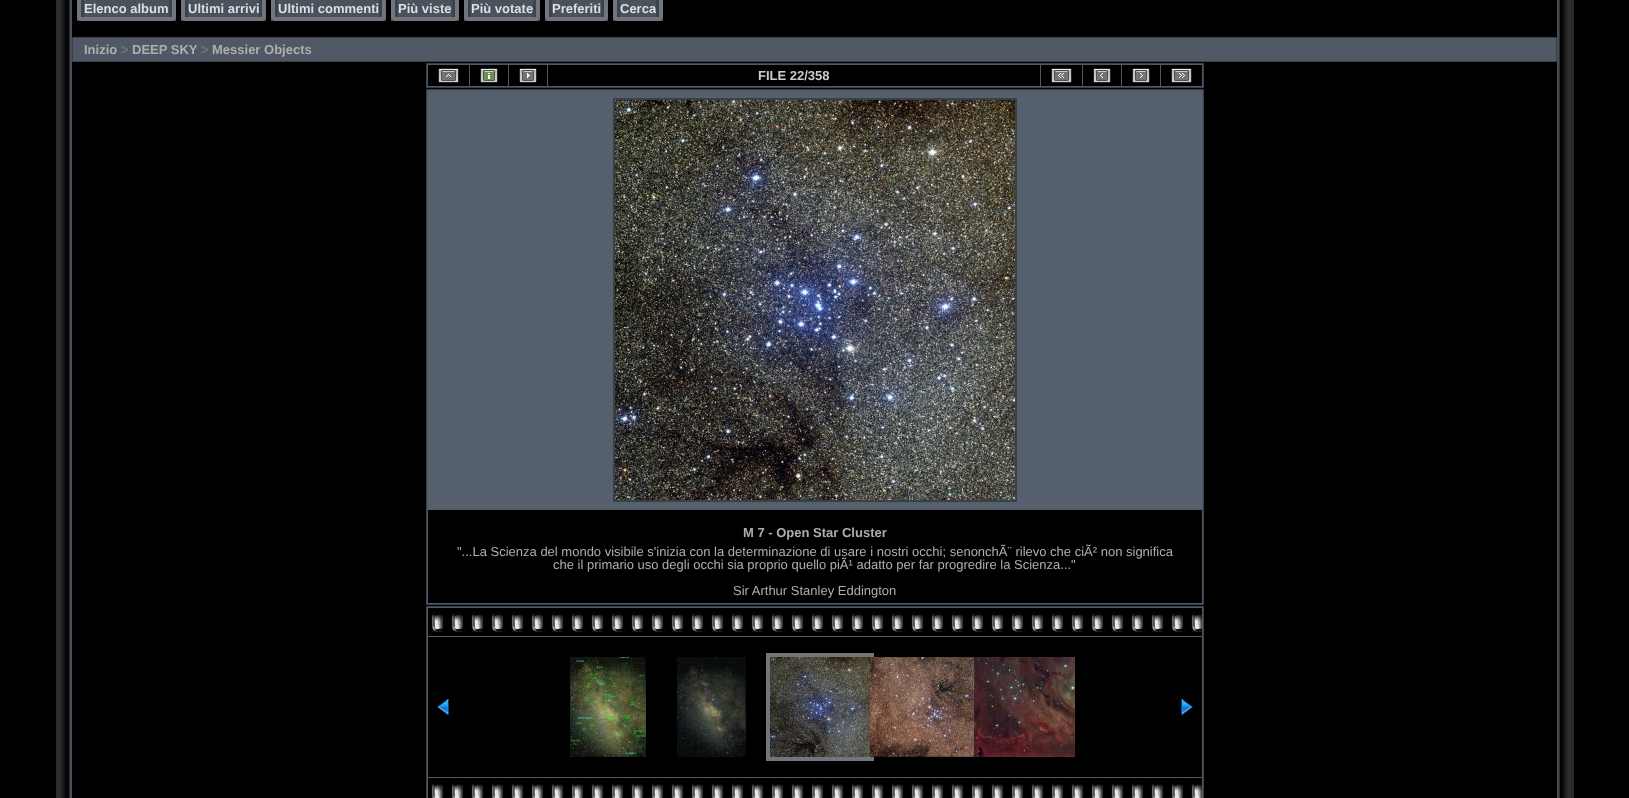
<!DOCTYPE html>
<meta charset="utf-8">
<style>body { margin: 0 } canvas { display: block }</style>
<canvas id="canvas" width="1629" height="798"></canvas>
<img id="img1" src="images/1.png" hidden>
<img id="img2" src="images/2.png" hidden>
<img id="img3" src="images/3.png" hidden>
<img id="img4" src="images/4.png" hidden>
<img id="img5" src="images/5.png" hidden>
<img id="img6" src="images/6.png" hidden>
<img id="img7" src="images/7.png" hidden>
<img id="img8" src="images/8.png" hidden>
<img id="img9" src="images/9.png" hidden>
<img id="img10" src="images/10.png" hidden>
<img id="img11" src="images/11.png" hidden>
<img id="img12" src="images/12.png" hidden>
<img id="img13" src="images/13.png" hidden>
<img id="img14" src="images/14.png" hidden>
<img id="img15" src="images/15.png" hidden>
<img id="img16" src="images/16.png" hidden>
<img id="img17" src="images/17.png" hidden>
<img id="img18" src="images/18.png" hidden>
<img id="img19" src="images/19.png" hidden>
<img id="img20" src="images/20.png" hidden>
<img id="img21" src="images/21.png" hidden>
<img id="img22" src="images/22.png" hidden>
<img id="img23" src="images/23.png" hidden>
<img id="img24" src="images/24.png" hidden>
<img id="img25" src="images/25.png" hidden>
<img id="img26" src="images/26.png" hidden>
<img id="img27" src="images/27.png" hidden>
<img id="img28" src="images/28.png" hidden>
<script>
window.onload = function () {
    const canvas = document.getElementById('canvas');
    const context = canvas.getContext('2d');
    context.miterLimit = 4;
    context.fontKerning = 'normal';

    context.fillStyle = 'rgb(0, 0, 0)';
    context.fillRect(0, 0, 1629, 798);
    context.drawImage(document.getElementById('img1'), 56, 0, 16, 798);
    context.drawImage(document.getElementById('img2'), 77, 0, 7, 21);
    context.drawImage(document.getElementById('img3'), 84, 0, 85, 21);
    context.drawImage(document.getElementById('img4'), 169, 0, 7, 21);
    context.drawImage(document.getElementById('img2'), 181, 0, 7, 21);
    context.drawImage(document.getElementById('img5'), 188, 0, 71, 21);
    context.drawImage(document.getElementById('img4'), 259, 0, 7, 21);
    context.drawImage(document.getElementById('img2'), 271, 0, 7, 21);
    context.drawImage(document.getElementById('img6'), 278, 0, 101, 21);
    context.drawImage(document.getElementById('img4'), 379, 0, 7, 21);
    context.drawImage(document.getElementById('img2'), 391, 0, 7, 21);
    context.drawImage(document.getElementById('img7'), 398, 0, 54, 21);
    context.drawImage(document.getElementById('img4'), 452, 0, 7, 21);
    context.drawImage(document.getElementById('img2'), 464, 0, 7, 21);
    context.drawImage(document.getElementById('img8'), 471, 0, 62, 21);
    context.drawImage(document.getElementById('img4'), 533, 0, 7, 21);
    context.drawImage(document.getElementById('img2'), 545, 0, 7, 21);
    context.drawImage(document.getElementById('img9'), 552, 0, 49, 21);
    context.drawImage(document.getElementById('img4'), 601, 0, 7, 21);
    context.drawImage(document.getElementById('img2'), 613, 0, 7, 21);
    context.drawImage(document.getElementById('img10'), 620, 0, 36, 21);
    context.fillStyle = 'rgb(79, 88, 100)';
    context.beginPath();
    context.rect(72.5, 37.5, 1484, 24);
    context.fill();
    context.strokeStyle = 'rgb(57, 64, 73)';
    context.stroke();
    context.beginPath();
    context.rect(426.5, 63.5, 777, 24);
    context.fill();
    context.stroke();
    context.fillStyle = 'rgb(0, 0, 0)';
    context.fillRect(428, 65, 41, 21);
    context.drawImage(document.getElementById('img11'), 438, 68, 21, 15);
    context.fillRect(470, 65, 38, 21);
    context.drawImage(document.getElementById('img12'), 480, 68, 18, 15);
    context.fillRect(509, 65, 38, 21);
    context.drawImage(document.getElementById('img13'), 519, 68, 18, 15);
    context.fillRect(548, 65, 492, 21);
    context.fillRect(1041, 65, 41, 21);
    context.drawImage(document.getElementById('img14'), 1051, 68, 21, 15);
    context.fillRect(1083, 65, 38, 21);
    context.drawImage(document.getElementById('img15'), 1093, 68, 18, 15);
    context.fillRect(1122, 65, 38, 21);
    context.drawImage(document.getElementById('img16'), 1132, 68, 18, 15);
    context.fillRect(1161, 65, 41, 21);
    context.drawImage(document.getElementById('img17'), 1171, 68, 21, 15);
    context.fillStyle = 'rgb(79, 88, 100)';
    context.beginPath();
    context.rect(426.5, 89.5, 777, 515);
    context.fill();
    context.stroke();
    context.fillStyle = 'rgb(86, 96, 109)';
    context.fillRect(428, 91, 774, 418);
    context.strokeStyle = 'rgb(57, 64, 72)';
    context.lineWidth = 2;
    context.strokeRect(614, 99, 402, 402);
    context.drawImage(document.getElementById('img18'), 615, 100, 400, 400);
    context.fillStyle = 'rgb(0, 0, 0)';
    context.fillRect(428, 510, 774, 93);
    context.fillStyle = 'rgb(79, 88, 100)';
    context.beginPath();
    context.rect(426.5, 606.5, 777, 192);
    context.fill();
    context.strokeStyle = 'rgb(57, 64, 73)';
    context.lineWidth = 1;
    context.stroke();
    context.fillStyle = 'rgb(0, 0, 0)';
    context.fillRect(428, 608, 774, 28);
    context.drawImage(document.getElementById('img19'), 431, 608, 771, 24);
    context.fillRect(428, 637, 774, 140);
    context.drawImage(document.getElementById('img20'), 437, 699, 12, 16);
    context.drawImage(document.getElementById('img21'), 570, 657, 76, 100);
    context.drawImage(document.getElementById('img22'), 677, 657, 69, 100);
    context.strokeStyle = 'rgb(114, 118, 124)';
    context.lineWidth = 4;
    context.strokeRect(768, 655, 104, 104);
    context.drawImage(document.getElementById('img23'), 770, 657, 100, 100);
    context.drawImage(document.getElementById('img24'), 870, 657, 104, 100);
    context.drawImage(document.getElementById('img25'), 974, 657, 101, 100);
    context.drawImage(document.getElementById('img26'), 1181, 699, 12, 16);
    context.fillRect(428, 778, 3, 20);
    context.drawImage(document.getElementById('img27'), 431, 778, 771, 20);
    context.drawImage(document.getElementById('img28'), 1557, 0, 17, 798);
    context.font = 'bold 13px Liberation Sans';
    context.fillStyle = 'rgb(223, 223, 223)';
    context.fillText('Elenco album', 84, 13);
    context.fillText('Ultimi arrivi', 188, 13);
    context.fillText('Ultimi commenti', 278, 13);
    context.fillText('Più viste', 398, 13);
    context.fillText('Più votate', 471, 13);
    context.fillText('Preferiti', 552, 13);
    context.fillText('Cerca', 620, 13);
    context.drawImage(document.getElementById('img4'), 656, 0, 7, 21);
    context.fillStyle = 'rgb(174, 174, 174)';
    context.fillText('Inizio', 84, 54);
    context.fillStyle = 'rgb(106, 119, 134)';
    context.fillText('>', 121, 54);
    context.fillStyle = 'rgb(174, 174, 174)';
    context.fillText('DEEP SKY', 132, 54);
    context.fillStyle = 'rgb(106, 119, 134)';
    context.fillText('>', 201, 54);
    context.fillStyle = 'rgb(174, 174, 174)';
    context.fillText('Messier Objects', 212, 54);
    context.fillStyle = 'rgb(204, 204, 204)';
    context.fillText('FILE 22/358', 758, 80);
    context.fillStyle = 'rgb(174, 174, 174)';
    context.fillText('M 7 - Open Star Cluster', 743, 537);
    context.font = '13px Liberation Sans';
    context.fillText('"...La Scienza del mondo visibile s\'inizia con la determinazione di usare i nostri occhi; senonchÃ¨ rilevo che ciÃ² non significa', 457, 556);
    context.fillText('che il primario uso degli occhi sia proprio quello piÃ¹ adatto per far progredire la Scienza..."', 553, 569);
    context.fillText('Sir Arthur Stanley Eddington', 733, 595);
};
</script>
